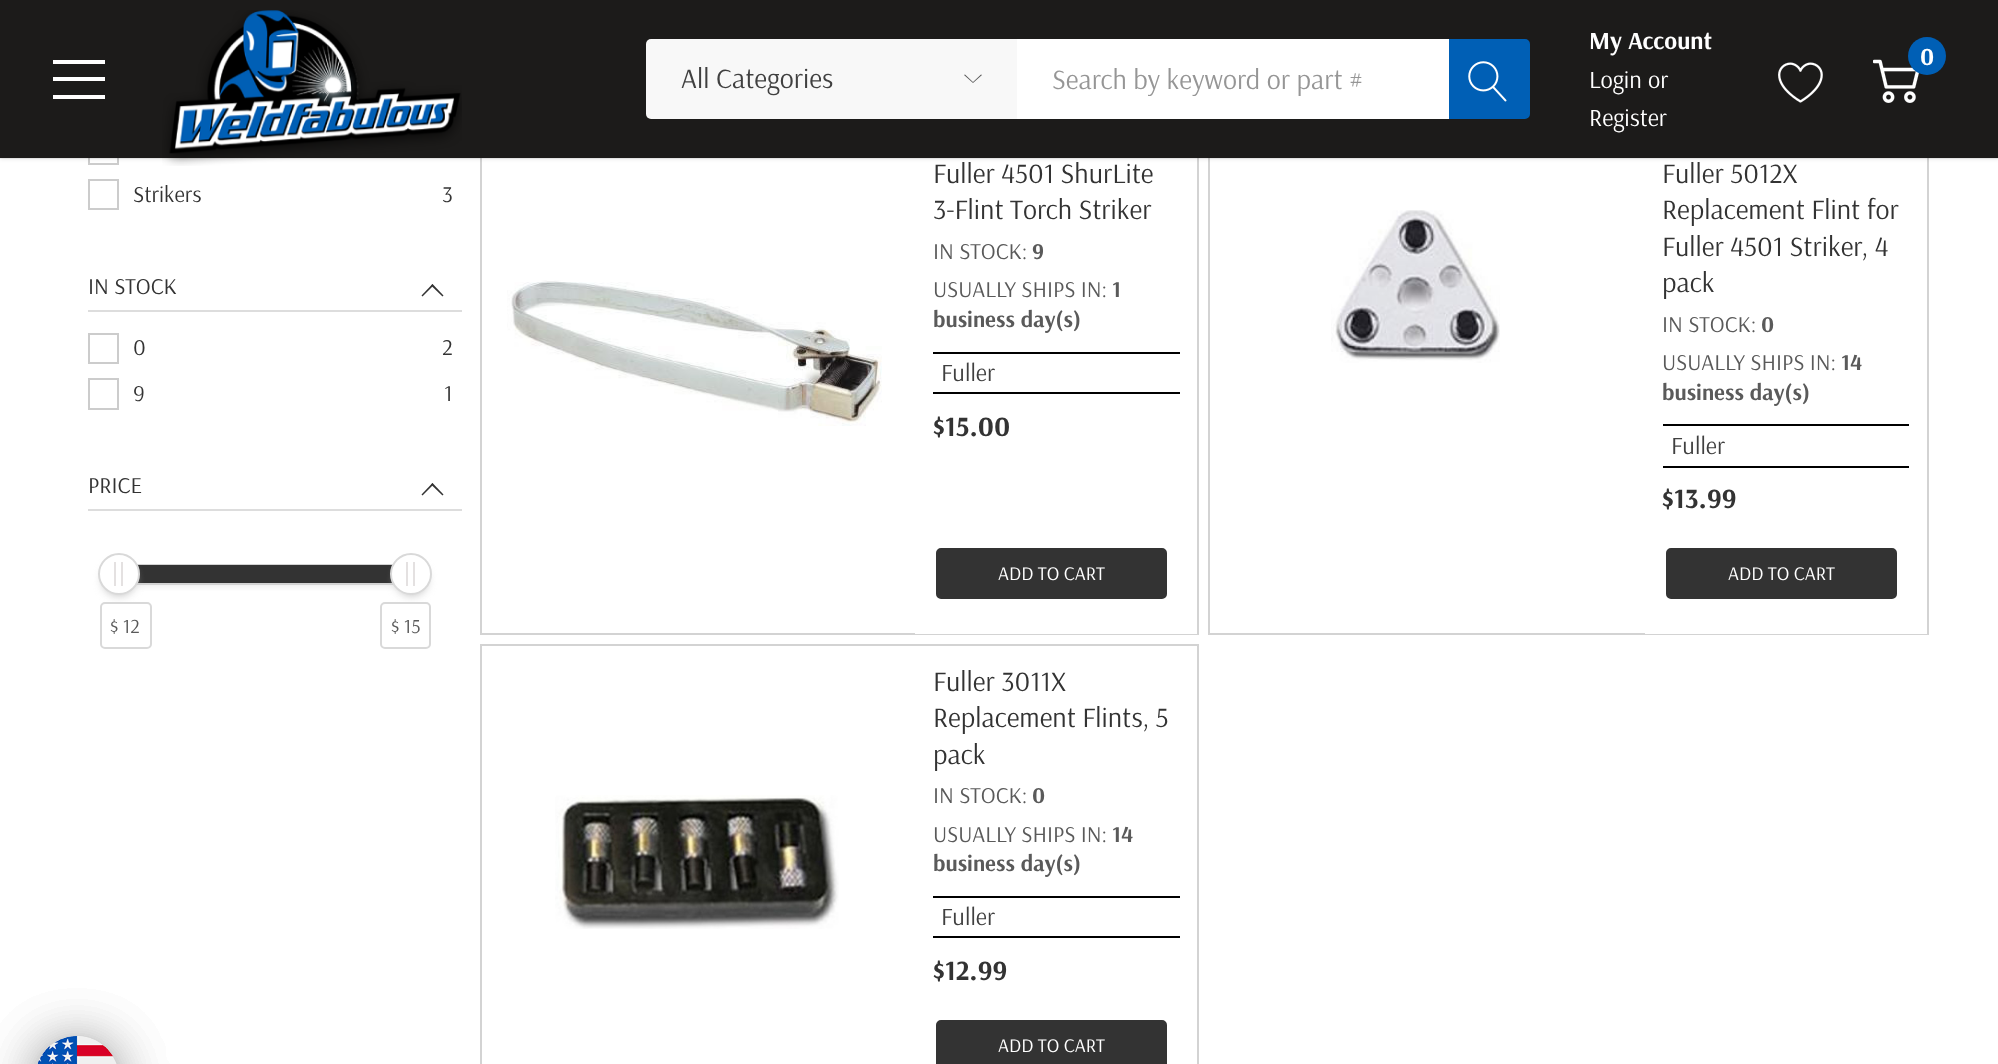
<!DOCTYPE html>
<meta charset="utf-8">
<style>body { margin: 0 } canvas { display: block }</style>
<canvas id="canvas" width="1998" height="1064"></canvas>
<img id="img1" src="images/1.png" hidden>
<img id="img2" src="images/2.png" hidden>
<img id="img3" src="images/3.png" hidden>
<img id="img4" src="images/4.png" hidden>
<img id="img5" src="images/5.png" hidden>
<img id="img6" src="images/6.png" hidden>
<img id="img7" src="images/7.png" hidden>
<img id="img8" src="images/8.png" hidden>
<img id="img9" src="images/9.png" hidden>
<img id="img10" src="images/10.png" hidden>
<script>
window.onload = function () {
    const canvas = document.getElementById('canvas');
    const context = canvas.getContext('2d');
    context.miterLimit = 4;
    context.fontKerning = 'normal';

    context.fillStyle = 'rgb(255, 255, 255)';
    context.fillRect(0, 0, 1998, 1064);
    context.strokeStyle = 'rgb(204, 204, 204)';
    context.lineWidth = 2;
    context.strokeRect(89, 134, 29, 30);
    context.strokeStyle = 'rgb(211, 211, 211)';
    context.strokeRect(481, 136, 717, 498);
    context.strokeRect(1209, 136, 719, 498);
    context.fillStyle = 'rgba(0, 0, 0, 0.1)';
    context.filter = 'blur(2px)';
    context.beginPath();
    context.rect(0, 2, 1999, 157);
    context.fill();
    context.filter = 'none';
    context.strokeStyle = 'rgba(0, 0, 0, 0.06)';
    context.strokeRect(-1, -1, 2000, 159);
    context.fillStyle = 'rgb(28, 27, 26)';
    context.fillRect(0, 0, 1998, 158);
    context.fillStyle = 'rgb(255, 255, 255)';
    context.fillRect(53, 77, 52, 4);
    context.fillRect(53, 60, 52, 4);
    context.fillRect(53, 95, 52, 4);
    context.drawImage(document.getElementById('img1'), 162, 10, 300, 156);
    context.drawImage(document.getElementById('img2'), 1873, 59, 46, 44);
    context.fillStyle = 'rgb(0, 95, 181)';
    context.beginPath();
    context.arc(1927, 56, 19, 0, 2 * Math.PI);
    context.fill();
    context.fillStyle = 'rgb(248, 248, 248)';
    context.beginPath();
    context.roundRect(646, 39, 371, 80, [5, 0, 0, 5]);
    context.fill();
    context.fillStyle = 'rgb(90, 90, 90)';
    context.beginPath();
    context.moveTo(973, 82);
    context.lineTo(981, 74.5);
    context.lineTo(982, 75);
    context.lineTo(973, 83);
    context.lineTo(964, 75);
    context.lineTo(965, 74.5);
    context.closePath();
    context.fill('evenodd');
    context.fillStyle = 'rgb(255, 255, 255)';
    context.fillRect(1017, 39, 432, 80);
    context.fillStyle = 'rgb(0, 95, 181)';
    context.beginPath();
    context.roundRect(1450, 40, 79, 78, [0, 4, 4, 0]);
    context.fill();
    context.strokeStyle = 'rgb(0, 95, 181)';
    context.stroke();
    context.drawImage(document.getElementById('img3'), 1468, 61, 39, 41);
    context.drawImage(document.getElementById('img4'), 1778, 62, 45, 41);
    context.strokeStyle = 'rgb(204, 204, 204)';
    context.strokeRect(89, 180, 29, 29);
    context.fillStyle = 'rgb(221, 221, 221)';
    context.fillRect(88, 310, 374, 2);
    context.fillStyle = 'rgb(51, 51, 51)';
    context.beginPath();
    context.moveTo(422.5, 296.5);
    context.lineTo(421.5, 295.5);
    context.lineTo(432.5, 284);
    context.lineTo(433.5, 285.5);
    context.closePath();
    context.fill();
    context.beginPath();
    context.moveTo(442.5, 296.5);
    context.lineTo(431, 285.5);
    context.lineTo(432.5, 284);
    context.lineTo(443.5, 295.5);
    context.closePath();
    context.fill();
    context.strokeRect(89, 334, 29, 29);
    context.strokeRect(89, 379, 29, 30);
    context.fillStyle = 'rgb(221, 221, 221)';
    context.fillRect(88, 509, 374, 2);
    context.fillStyle = 'rgb(51, 51, 51)';
    context.beginPath();
    context.moveTo(422.5, 495.5);
    context.lineTo(421.5, 494.5);
    context.lineTo(432.5, 483);
    context.lineTo(433.5, 484.5);
    context.closePath();
    context.fill();
    context.beginPath();
    context.moveTo(442.5, 495.5);
    context.lineTo(431, 484.5);
    context.lineTo(432.5, 483);
    context.lineTo(443.5, 494.5);
    context.closePath();
    context.fill();
    context.fillStyle = 'rgb(187, 187, 187)';
    context.filter = 'blur(5px)';
    context.beginPath();
    context.rect(135, 578, 278, 4);
    context.fill();
    context.filter = 'none';
    context.strokeStyle = 'rgb(211, 211, 211)';
    context.strokeRect(127, 565, 294, 19);
    context.fillStyle = 'rgb(51, 51, 51)';
    context.fillRect(138, 565, 254, 18);
    context.fillStyle = 'rgb(187, 187, 187)';
    context.filter = 'blur(5px)';
    context.beginPath();
    context.roundRect(103, 564, 32, 31, 15.5);
    context.fill();
    context.filter = 'none';
    context.fillStyle = 'rgb(255, 255, 255)';
    context.beginPath();
    context.arc(119, 574, 20, 0, 2 * Math.PI);
    context.fill();
    context.strokeStyle = 'rgb(217, 217, 217)';
    context.stroke();
    context.fillStyle = 'rgb(228, 225, 225)';
    context.fillRect(114, 562, 2, 24);
    context.fillRect(121, 562, 2, 24);
    context.fillStyle = 'rgb(255, 255, 255)';
    context.beginPath();
    context.roundRect(101, 603, 50, 45, 4);
    context.fill();
    context.stroke();
    context.fillStyle = 'rgb(187, 187, 187)';
    context.filter = 'blur(5px)';
    context.beginPath();
    context.roundRect(396, 564, 31, 31, 15.5);
    context.fill();
    context.filter = 'none';
    context.fillStyle = 'rgb(255, 255, 255)';
    context.beginPath();
    context.arc(411, 574, 20, 0, 2 * Math.PI);
    context.fill();
    context.stroke();
    context.fillStyle = 'rgb(228, 225, 225)';
    context.fillRect(406, 562, 2, 24);
    context.fillRect(413, 562, 2, 24);
    context.fillStyle = 'rgb(255, 255, 255)';
    context.beginPath();
    context.roundRect(381, 603, 49, 45, 4);
    context.fill();
    context.stroke();
    context.drawImage(document.getElementById('img5'), 507, 280, 375, 146);
    context.fillStyle = 'rgb(0, 0, 0)';
    context.fillRect(933, 352, 247, 2);
    context.fillRect(933, 392, 247, 2);
    context.fillStyle = 'rgb(255, 255, 255)';
    context.fillRect(915, 633, 282, 1);
    context.fillStyle = 'rgb(51, 51, 51)';
    context.beginPath();
    context.roundRect(938, 550, 227, 47, 3);
    context.fill();
    context.strokeStyle = 'rgb(51, 51, 51)';
    context.lineWidth = 4;
    context.stroke();
    context.drawImage(document.getElementById('img6'), 1331, 210, 169, 153);
    context.fillStyle = 'rgb(0, 0, 0)';
    context.fillRect(1663, 424, 246, 2);
    context.fillRect(1663, 466, 246, 2);
    context.fillStyle = 'rgb(255, 255, 255)';
    context.fillRect(1645, 633, 282, 1);
    context.fillStyle = 'rgb(51, 51, 51)';
    context.beginPath();
    context.roundRect(1668, 550, 227, 47, 3);
    context.fill();
    context.stroke();
    context.strokeStyle = 'rgb(211, 211, 211)';
    context.lineWidth = 2;
    context.strokeRect(481, 645, 717, 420);
    context.drawImage(document.getElementById('img7'), 555, 795, 284, 134);
    context.fillStyle = 'rgb(0, 0, 0)';
    context.fillRect(933, 896, 247, 2);
    context.fillRect(933, 936, 247, 2);
    context.fillStyle = 'rgb(51, 51, 51)';
    context.beginPath();
    context.roundRect(938, 1022, 227, 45, 3);
    context.fill();
    context.strokeStyle = 'rgb(51, 51, 51)';
    context.lineWidth = 4;
    context.stroke();
    context.fillStyle = 'rgba(0, 0, 0, 0.16)';
    context.filter = 'blur(28px)';
    context.beginPath();
    context.roundRect(35, 1040, 84, 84, 42);
    context.fill();
    context.filter = 'none';
    context.fillStyle = 'rgba(0, 0, 0, 0.06)';
    context.filter = 'blur(5px)';
    context.beginPath();
    context.roundRect(35, 1038, 84, 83, 42);
    context.fill();
    context.filter = 'none';
    context.drawImage(document.getElementById('img8'), 37, 1036, 79, 28);
    context.save();
    context.beginPath();
    context.moveTo(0, 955);
    context.lineTo(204, 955);
    context.lineTo(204, 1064);
    context.lineTo(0, 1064);
    context.closePath();
    context.moveTo(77, 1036);
    context.bezierCurveTo(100, 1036, 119, 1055, 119, 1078);
    context.bezierCurveTo(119, 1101, 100, 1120, 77, 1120);
    context.bezierCurveTo(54, 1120, 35, 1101, 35, 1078);
    context.bezierCurveTo(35, 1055, 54, 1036, 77, 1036);
    context.closePath();
    context.clip('evenodd');
    context.fillStyle = 'rgba(0, 0, 0, 0.16)';
    context.filter = 'blur(28px)';
    context.beginPath();
    context.roundRect(35, 1040, 84, 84, 42);
    context.fill();
    context.filter = 'none';
    context.restore();
    context.drawImage(document.getElementById('img9'), 37, 1036, 76, 28);
    context.save();
    context.beginPath();
    context.moveTo(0, 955);
    context.lineTo(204, 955);
    context.lineTo(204, 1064);
    context.lineTo(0, 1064);
    context.closePath();
    context.moveTo(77, 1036);
    context.bezierCurveTo(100, 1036, 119, 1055, 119, 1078);
    context.bezierCurveTo(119, 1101, 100, 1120, 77, 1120);
    context.bezierCurveTo(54, 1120, 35, 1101, 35, 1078);
    context.bezierCurveTo(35, 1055, 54, 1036, 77, 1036);
    context.closePath();
    context.clip('evenodd');
    context.fillStyle = 'rgba(0, 0, 0, 0.16)';
    context.filter = 'blur(28px)';
    context.beginPath();
    context.roundRect(35, 1040, 84, 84, 42);
    context.fill();
    context.filter = 'none';
    context.restore();
    context.drawImage(document.getElementById('img10'), 37, 1036, 76, 28);
    context.font = 'bold 24.5px Arsenal';
    context.fillStyle = 'rgb(255, 255, 255)';
    context.fillText('My Account', 1589, 49);
    context.font = '24.5px Arsenal';
    context.fillText('Login', 1589, 88);
    context.fillText('or', 1648, 88);
    context.fillText('Register', 1589, 126);
    context.font = 'bold 24.5px Arsenal';
    context.fillText('0', 1920, 65);
    context.font = '28px Arsenal';
    context.fillStyle = 'rgb(64, 64, 64)';
    context.fillText('All Categories', 681, 88);
    context.save();
    context.beginPath();
    context.rect(1052, 61, 360, 35);
    context.clip();
    context.fillStyle = 'rgb(150, 150, 150)';
    context.fillText('Search by keyword or part #', 1052, 89);
    context.restore();
    context.font = '22.75px Arsenal';
    context.fillStyle = 'rgb(51, 51, 51)';
    context.fillText('Strikers', 133, 202);
    context.fillText('3', 442, 202);
    context.fillText('IN STOCK', 88, 294);
    context.fillText('0', 133, 355);
    context.fillText('2', 442, 355);
    context.fillText('9', 133, 401);
    context.fillText('1', 444, 401);
    context.fillText('PRICE', 88, 493);
    context.font = '20px Arsenal';
    context.fillStyle = 'rgb(90, 90, 90)';
    context.fillText('$ 12', 110, 633);
    context.fillText('$ 15', 391, 633);
    context.font = '28px Arsenal';
    context.fillStyle = 'rgb(51, 51, 51)';
    context.fillText('Fuller 4501 ShurLite', 933, 183);
    context.fillText('3-Flint Torch Striker', 933, 219);
    context.font = '22.75px Arsenal';
    context.fillStyle = 'rgb(90, 90, 90)';
    context.fillText('IN STOCK:', 933, 259);
    context.font = 'bold 22.75px Arsenal';
    context.fillText('9', 1032, 259);
    context.font = '22.75px Arsenal';
    context.fillText('USUALLY SHIPS IN:', 933, 297);
    context.font = 'bold 22.75px Arsenal';
    context.fillText('1', 1112, 297);
    context.fillText('business day(s)', 933, 327);
    context.font = '24.5px Arsenal';
    context.fillStyle = 'rgb(64, 64, 64)';
    context.fillText('Fuller', 941, 381);
    context.font = 'bold 28px Arsenal';
    context.fillStyle = 'rgb(51, 51, 51)';
    context.fillText('$15.00', 933, 436);
    context.font = '19.25px Arsenal';
    context.fillStyle = 'rgb(255, 255, 255)';
    context.fillText('ADD TO CART', 998, 580);
    context.font = '28px Arsenal';
    context.fillStyle = 'rgb(51, 51, 51)';
    context.fillText('Fuller 5012X', 1662, 183);
    context.fillText('Replacement Flint for', 1662, 219);
    context.fillText('Fuller 4501 Striker, 4', 1662, 256);
    context.fillText('pack', 1662, 292);
    context.font = '22.75px Arsenal';
    context.fillStyle = 'rgb(90, 90, 90)';
    context.fillText('IN STOCK:', 1662, 332);
    context.font = 'bold 22.75px Arsenal';
    context.fillText('0', 1761, 332);
    context.font = '22.75px Arsenal';
    context.fillText('USUALLY SHIPS IN:', 1662, 370);
    context.font = 'bold 22.75px Arsenal';
    context.fillText('14', 1841, 370);
    context.fillText('business day(s)', 1662, 400);
    context.font = '24.5px Arsenal';
    context.fillStyle = 'rgb(64, 64, 64)';
    context.fillText('Fuller', 1671, 454);
    context.font = 'bold 28px Arsenal';
    context.fillStyle = 'rgb(51, 51, 51)';
    context.fillText('$13.99', 1662, 508);
    context.font = '19.25px Arsenal';
    context.fillStyle = 'rgb(255, 255, 255)';
    context.fillText('ADD TO CART', 1728, 580);
    context.font = '28px Arsenal';
    context.fillStyle = 'rgb(51, 51, 51)';
    context.fillText('Fuller 3011X', 933, 691);
    context.fillText('Replacement Flints, 5', 933, 727);
    context.fillText('pack', 933, 764);
    context.font = '22.75px Arsenal';
    context.fillStyle = 'rgb(90, 90, 90)';
    context.fillText('IN STOCK:', 933, 803);
    context.font = 'bold 22.75px Arsenal';
    context.fillText('0', 1032, 803);
    context.font = '22.75px Arsenal';
    context.fillText('USUALLY SHIPS IN:', 933, 842);
    context.font = 'bold 22.75px Arsenal';
    context.fillText('14', 1112, 842);
    context.fillText('business day(s)', 933, 871);
    context.font = '24.5px Arsenal';
    context.fillStyle = 'rgb(64, 64, 64)';
    context.fillText('Fuller', 941, 925);
    context.font = 'bold 28px Arsenal';
    context.fillStyle = 'rgb(51, 51, 51)';
    context.fillText('$12.99', 933, 980);
    context.font = '19.25px Arsenal';
    context.fillStyle = 'rgb(255, 255, 255)';
    context.fillText('ADD TO CART', 998, 1052);
};
</script>
